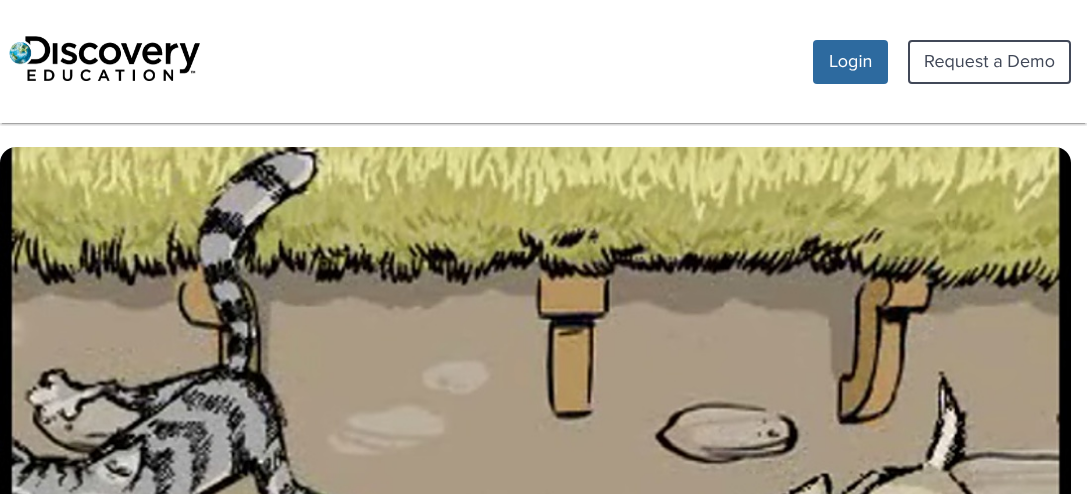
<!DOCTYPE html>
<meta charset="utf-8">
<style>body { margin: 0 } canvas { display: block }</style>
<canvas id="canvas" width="1087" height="494"></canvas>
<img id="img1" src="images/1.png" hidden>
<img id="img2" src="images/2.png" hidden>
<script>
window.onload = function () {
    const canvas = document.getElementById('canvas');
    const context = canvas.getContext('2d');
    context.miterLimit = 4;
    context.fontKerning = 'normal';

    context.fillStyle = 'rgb(255, 255, 255)';
    context.fillRect(0, 0, 1087, 494);
    context.save();
    context.beginPath();
    context.rect(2, 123, 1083, 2);
    context.clip();
    context.fillStyle = 'rgba(0, 0, 0, 0.2)';
    context.filter = 'blur(0.5px)';
    context.beginPath();
    context.rect(2, 5, 1083, 119);
    context.fill();
    context.filter = 'none';
    context.restore();
    context.save();
    context.beginPath();
    context.rect(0, 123, 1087, 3);
    context.clip();
    context.fillStyle = 'rgba(0, 0, 0, 0.12)';
    context.filter = 'blur(2.5px)';
    context.beginPath();
    context.rect(0, 1, 1087, 123);
    context.fill();
    context.filter = 'none';
    context.fillStyle = 'rgba(0, 0, 0, 0.14)';
    context.filter = 'blur(1px)';
    context.beginPath();
    context.rect(0, 2, 1087, 123);
    context.fill();
    context.filter = 'none';
    context.restore();
    context.drawImage(document.getElementById('img1'), 9, 36, 191, 45);
    context.fillStyle = 'rgb(45, 106, 159)';
    context.beginPath();
    context.roundRect(813, 40, 75, 44, 4);
    context.fill();
    context.beginPath();
    context.roundRect(909, 41, 161, 42, 3);
    context.strokeStyle = 'rgb(65, 72, 88)';
    context.lineWidth = 2;
    context.stroke();
    context.fillStyle = 'rgb(240, 244, 245)';
    context.beginPath();
    context.moveTo(16, 147);
    context.lineTo(1055, 147);
    context.bezierCurveTo(1064, 147, 1071, 154, 1071, 163);
    context.lineTo(1071, 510);
    context.lineTo(0, 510);
    context.lineTo(0, 163);
    context.bezierCurveTo(0, 154, 7, 147, 16, 147);
    context.closePath();
    context.fill();
    context.drawImage(document.getElementById('img2'), 0, 147, 1071, 347);
    context.font = '18px Proxima Nova';
    context.fillStyle = 'rgb(255, 255, 255)';
    context.fillText('Login', 829, 67);
    context.fillStyle = 'rgb(65, 72, 88)';
    context.fillText('Request a Demo', 924, 67);
};
</script>
